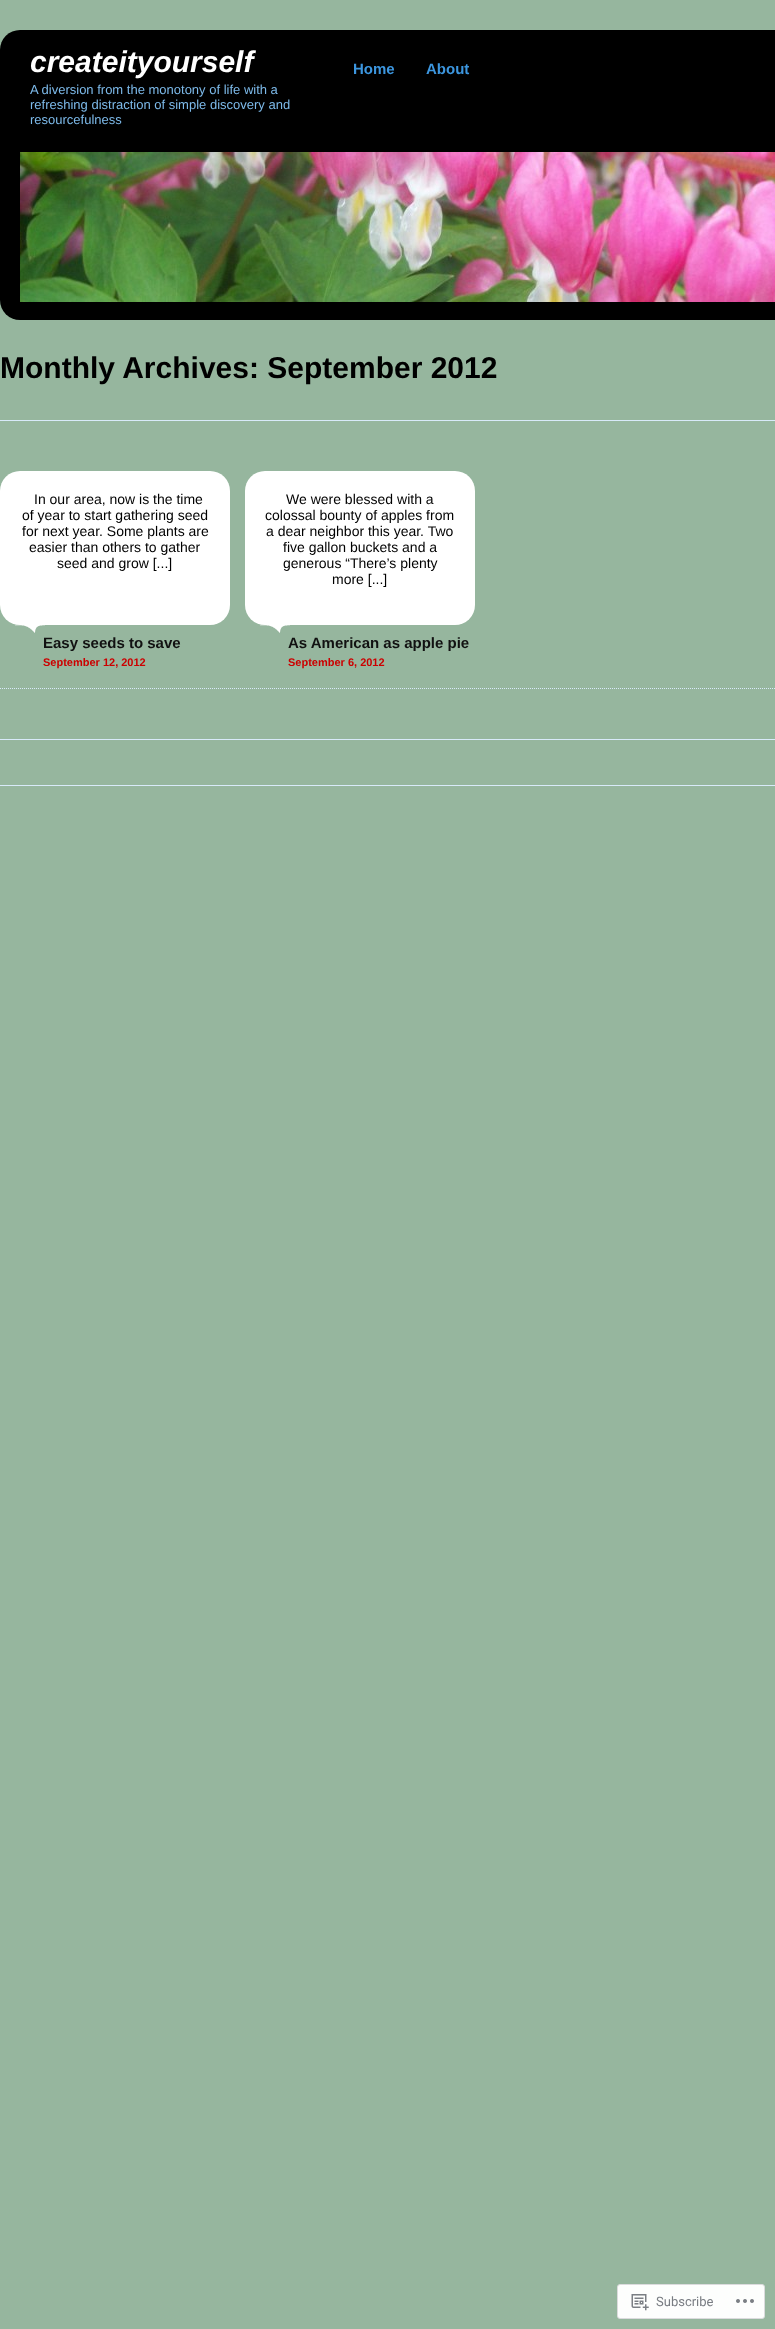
<!DOCTYPE html>
<meta charset="utf-8">
<style>body { margin: 0 } canvas { display: block }</style>
<canvas id="canvas" width="775" height="2329"></canvas>
<img id="img1" src="images/1.png" hidden>
<img id="img2" src="images/2.png" hidden>
<img id="img3" src="images/3.png" hidden>
<img id="img4" src="images/4.png" hidden>
<script>
window.onload = function () {
    const canvas = document.getElementById('canvas');
    const context = canvas.getContext('2d');
    context.miterLimit = 4;
    context.fontKerning = 'normal';

    context.fillStyle = 'rgb(150, 182, 158)';
    context.fillRect(0, 0, 775, 2329);
    context.fillStyle = 'rgb(0, 0, 0)';
    context.beginPath();
    context.roundRect(0, 30, 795, 290, 20);
    context.fill();
    context.drawImage(document.getElementById('img1'), 20, 152, 755, 150);
    context.fillStyle = 'rgb(216, 234, 249)';
    context.fillRect(0, 420, 775, 1);
    context.beginPath();
    context.moveTo(0, 688.5);
    context.lineTo(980, 688.5);
    context.strokeStyle = 'rgb(216, 234, 249)';
    context.setLineDash([1, 1]);
    context.stroke();
    context.fillStyle = 'rgb(255, 255, 255)';
    context.beginPath();
    context.roundRect(0, 471, 230, 154, 20);
    context.fill();
    context.drawImage(document.getElementById('img2'), 15, 625, 30, 8);
    context.beginPath();
    context.roundRect(245, 471, 230, 154, 20);
    context.fill();
    context.drawImage(document.getElementById('img2'), 260, 625, 30, 8);
    context.fillStyle = 'rgb(216, 234, 249)';
    context.fillRect(0, 739, 775, 1);
    context.fillRect(0, 785, 775, 1);
    context.fillStyle = 'rgb(253, 254, 253)';
    context.beginPath();
    context.roundRect(617.5, 2284.5, 147, 34, 2.5);
    context.fill();
    context.strokeStyle = 'rgb(219, 219, 221)';
    context.setLineDash([]);
    context.stroke();
    context.drawImage(document.getElementById('img3'), 631, 2294, 18, 17);
    context.drawImage(document.getElementById('img4'), 736, 2299, 18, 4);
    context.font = 'italic bold 30px Liberation Sans';
    context.fillStyle = 'rgb(255, 255, 255)';
    context.fillText('createityourself', 30, 72);
    context.font = '13px Liberation Sans';
    context.fillStyle = 'rgb(125, 186, 234)';
    context.fillText('A diversion from the monotony of life with a', 30, 94);
    context.fillText('refreshing distraction of simple discovery and', 30, 109);
    context.fillText('resourcefulness', 30, 124);
    context.font = 'bold 15px Liberation Sans';
    context.fillStyle = 'rgb(60, 150, 223)';
    context.fillText('Home', 353, 74);
    context.fillText('About', 426, 74);
    context.font = 'bold 30px Liberation Sans';
    context.fillStyle = 'rgb(0, 0, 0)';
    context.fillText('Monthly Archives: September 2012', 0, 378);
    context.font = '14px Liberation Sans';
    context.fillText('In our area, now is the time', 34, 504);
    context.fillText('of year to start gathering seed', 22, 520);
    context.fillText('for next year. Some plants are', 22, 536);
    context.fillText('easier than others to gather', 29, 552);
    context.fillText('seed and grow [...]', 57, 568);
    context.font = 'bold 15px Liberation Sans';
    context.fillStyle = 'rgb(17, 17, 17)';
    context.fillText('Easy seeds to save', 43, 648);
    context.font = 'bold 11px Liberation Sans';
    context.fillStyle = 'rgb(204, 0, 0)';
    context.fillText('September 12, 2012', 43, 666);
    context.font = '14px Liberation Sans';
    context.fillStyle = 'rgb(0, 0, 0)';
    context.fillText('We were blessed with a', 286, 504);
    context.fillText('colossal bounty of apples from', 265, 520);
    context.fillText('a dear neighbor this year. Two', 266, 536);
    context.fillText('five gallon buckets and a', 283, 552);
    context.fillText('generous “There’s plenty', 283, 568);
    context.fillText('more [...]', 332, 584);
    context.font = 'bold 15px Liberation Sans';
    context.fillStyle = 'rgb(17, 17, 17)';
    context.fillText('As American as apple pie', 288, 648);
    context.font = 'bold 11px Liberation Sans';
    context.fillStyle = 'rgb(204, 0, 0)';
    context.fillText('September 6, 2012', 288, 666);
    context.font = '13px Roboto';
    context.fillStyle = 'rgb(121, 125, 131)';
    context.fillText('Subscribe', 656, 2306);
};
</script>
